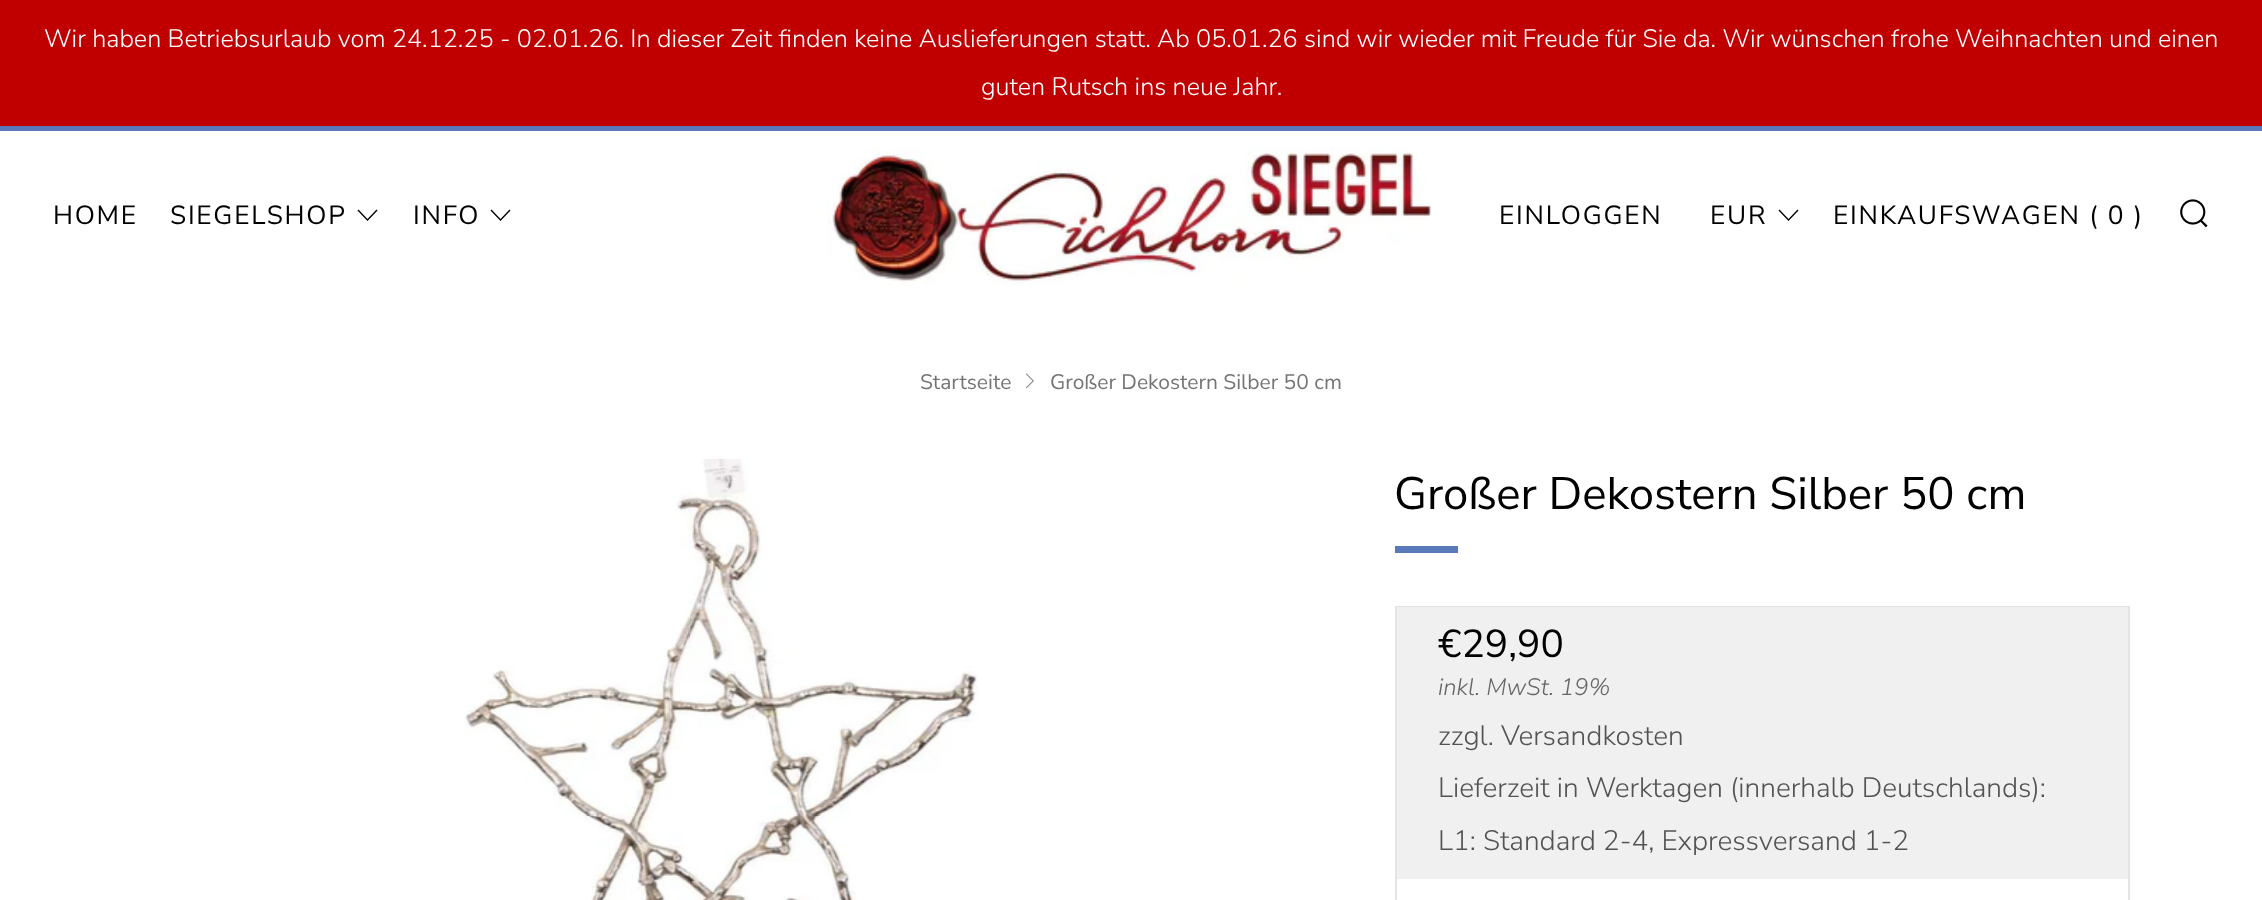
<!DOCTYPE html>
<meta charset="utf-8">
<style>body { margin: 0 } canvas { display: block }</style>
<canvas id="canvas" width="2262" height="900"></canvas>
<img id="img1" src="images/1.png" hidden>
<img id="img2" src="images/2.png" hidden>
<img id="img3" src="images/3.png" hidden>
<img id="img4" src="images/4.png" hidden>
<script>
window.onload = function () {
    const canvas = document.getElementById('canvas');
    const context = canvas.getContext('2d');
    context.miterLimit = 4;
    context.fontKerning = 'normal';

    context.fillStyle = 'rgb(255, 255, 255)';
    context.fillRect(0, 0, 2262, 900);
    context.fillStyle = 'rgb(192, 0, 0)';
    context.fillRect(0, 0, 2262, 126);
    context.fillStyle = 'rgb(89, 121, 184)';
    context.fillRect(0, 126, 2262, 5);
    context.drawImage(document.getElementById('img1'), 826, 147, 606, 138);
    context.fillStyle = 'rgb(0, 0, 0)';
    context.beginPath();
    context.moveTo(358.5, 209.5);
    context.lineTo(357.5, 210.5);
    context.lineTo(367.5, 221);
    context.lineTo(377.5, 210.5);
    context.lineTo(376.5, 209.5);
    context.lineTo(367.5, 219);
    context.closePath();
    context.fill();
    context.beginPath();
    context.moveTo(491.5, 209.5);
    context.lineTo(490.5, 210.5);
    context.lineTo(500.5, 221);
    context.lineTo(510.5, 210.5);
    context.lineTo(509.5, 209.5);
    context.lineTo(500.5, 219);
    context.closePath();
    context.fill();
    context.beginPath();
    context.moveTo(1779.5, 209.5);
    context.lineTo(1778.5, 210.5);
    context.lineTo(1788.5, 221);
    context.lineTo(1798.5, 210.5);
    context.lineTo(1797.5, 209.5);
    context.lineTo(1788.5, 219);
    context.closePath();
    context.fill();
    context.drawImage(document.getElementById('img2'), 2180, 199, 28, 29);
    context.drawImage(document.getElementById('img3'), 1025, 373, 9, 16);
    context.drawImage(document.getElementById('img4'), 465, 459, 513, 441);
    context.fillStyle = 'rgb(89, 121, 184)';
    context.fillRect(1395, 546, 63, 7);
    context.strokeStyle = 'rgb(228, 228, 228)';
    context.lineWidth = 2;
    context.strokeRect(1396, 607, 733, 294);
    context.fillStyle = 'rgb(240, 240, 240)';
    context.fillRect(1397, 607, 731, 272);
    context.font = '300 25.2px Nunito Sans';
    context.fillStyle = 'rgb(255, 255, 255)';
    context.fillText('Wir haben Betriebsurlaub vom 24.12.25 - 02.01.26. In dieser Zeit finden keine Auslieferungen statt. Ab 05.01.26 sind wir wieder mit Freude für Sie da. Wir wünschen frohe Weihnachten und einen', 44, 47);
    context.fillText('guten Rutsch ins neue Jahr.', 981, 95);
    context.letterSpacing = '1.75px';
    context.font = '26.25px Nunito Sans';
    context.fillStyle = 'rgb(0, 0, 0)';
    context.fillText('HOME', 53, 224);
    context.fillText('SIEGELSHOP', 170, 224);
    context.fillText('INFO', 413, 224);
    context.fillText('EINLOGGEN', 1499, 224);
    context.fillText('EUR', 1710, 224);
    context.fillText('EINKAUFSWAGEN ( 0 )', 1833, 224);
    context.letterSpacing = '0px';
    context.font = '21px Nunito Sans';
    context.fillStyle = 'rgb(117, 117, 117)';
    context.fillText('Startseite', 920, 389);
    context.fillText('Großer Dekostern Silber 50 cm', 1050, 389);
    context.font = '45.5px Nunito Sans';
    context.fillStyle = 'rgb(0, 0, 0)';
    context.fillText('Großer Dekostern Silber 50 cm', 1394, 509);
    context.font = '39px Nunito Sans';
    context.fillText('€29,90', 1438, 657);
    context.font = 'italic 300 23.75px Nunito Sans';
    context.fillStyle = 'rgb(102, 102, 102)';
    context.fillText('inkl. MwSt. 19%', 1438, 695);
    context.font = '300 28px Nunito Sans';
    context.fillStyle = 'rgb(83, 83, 83)';
    context.fillText('zzgl. Versandkosten', 1438, 745);
    context.fillText('Lieferzeit in Werktagen (innerhalb Deutschlands):', 1438, 797);
    context.fillText('L1: Standard 2-4, Expressversand 1-2', 1438, 850);
};
</script>
